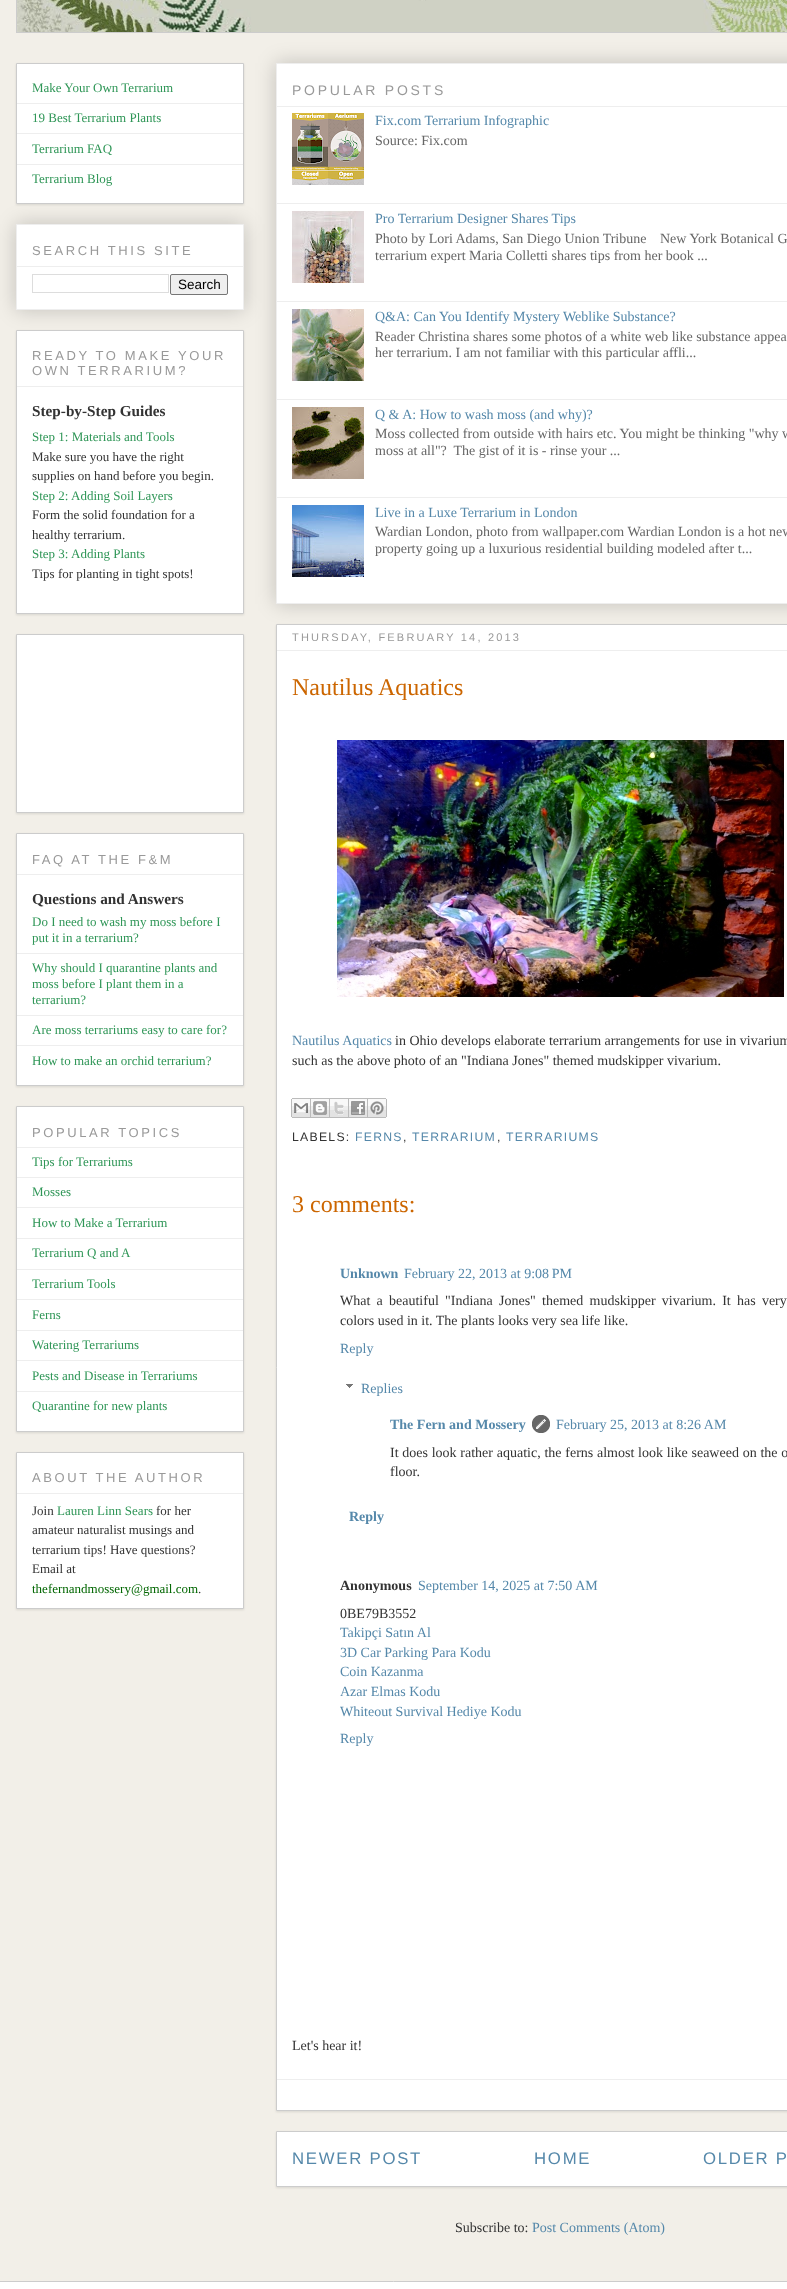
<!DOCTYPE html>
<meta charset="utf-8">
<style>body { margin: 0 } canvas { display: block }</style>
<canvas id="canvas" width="787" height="2289"></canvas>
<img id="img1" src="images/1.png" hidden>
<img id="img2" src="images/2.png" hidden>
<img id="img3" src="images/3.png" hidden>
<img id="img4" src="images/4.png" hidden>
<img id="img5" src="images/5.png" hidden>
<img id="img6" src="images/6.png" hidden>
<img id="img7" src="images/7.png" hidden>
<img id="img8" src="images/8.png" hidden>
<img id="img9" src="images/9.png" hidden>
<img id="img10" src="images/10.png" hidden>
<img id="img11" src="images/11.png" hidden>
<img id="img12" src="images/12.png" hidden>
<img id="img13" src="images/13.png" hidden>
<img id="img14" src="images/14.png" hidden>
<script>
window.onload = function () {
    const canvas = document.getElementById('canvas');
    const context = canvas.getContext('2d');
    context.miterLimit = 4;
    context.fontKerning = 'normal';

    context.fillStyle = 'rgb(242, 239, 232)';
    context.fillRect(0, 0, 787, 2289);
    context.strokeStyle = 'rgb(204, 204, 204)';
    context.strokeRect(16.5, -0.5, 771, 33);
    context.drawImage(document.getElementById('img1'), 17, 0, 770, 32);
    context.fillStyle = 'rgba(0, 0, 0, 0.1)';
    context.filter = 'blur(1px)';
    context.beginPath();
    context.rect(16, 64, 228, 141);
    context.fill();
    context.filter = 'none';
    context.fillStyle = 'rgb(255, 255, 255)';
    context.beginPath();
    context.rect(16.5, 63.5, 227, 140);
    context.fill();
    context.stroke();
    context.fillStyle = 'rgb(238, 238, 238)';
    context.fillRect(17, 103, 226, 1);
    context.fillRect(17, 133, 226, 1);
    context.fillRect(17, 164, 226, 1);
    context.fillStyle = 'rgba(0, 0, 0, 0.2)';
    context.filter = 'blur(10px)';
    context.beginPath();
    context.rect(16, 224, 228, 86);
    context.fill();
    context.filter = 'none';
    context.fillStyle = 'rgb(255, 255, 255)';
    context.beginPath();
    context.rect(16.5, 224.5, 227, 85);
    context.fill();
    context.strokeStyle = 'rgb(238, 238, 238)';
    context.stroke();
    context.fillStyle = 'rgb(238, 238, 238)';
    context.fillRect(17, 266, 226, 1);
    context.strokeStyle = 'rgb(221, 221, 221)';
    context.strokeRect(32.5, 274.5, 136, 18);
    context.fillStyle = 'rgb(239, 239, 239)';
    context.beginPath();
    context.roundRect(170.5, 274.5, 57, 20, 1.5);
    context.fill();
    context.strokeStyle = 'rgb(118, 118, 118)';
    context.stroke();
    context.fillStyle = 'rgba(0, 0, 0, 0.1)';
    context.filter = 'blur(1px)';
    context.beginPath();
    context.rect(16, 331, 228, 284);
    context.fill();
    context.filter = 'none';
    context.fillStyle = 'rgb(255, 255, 255)';
    context.beginPath();
    context.rect(16.5, 330.5, 227, 283);
    context.fill();
    context.strokeStyle = 'rgb(204, 204, 204)';
    context.stroke();
    context.fillStyle = 'rgb(238, 238, 238)';
    context.fillRect(17, 386, 226, 1);
    context.fillStyle = 'rgba(0, 0, 0, 0.1)';
    context.filter = 'blur(1px)';
    context.beginPath();
    context.rect(16, 635, 228, 179);
    context.fill();
    context.filter = 'none';
    context.fillStyle = 'rgb(255, 255, 255)';
    context.beginPath();
    context.rect(16.5, 634.5, 227, 178);
    context.fill();
    context.stroke();
    context.fillStyle = 'rgba(0, 0, 0, 0.1)';
    context.filter = 'blur(1px)';
    context.beginPath();
    context.rect(16, 834, 228, 253);
    context.fill();
    context.filter = 'none';
    context.fillStyle = 'rgb(255, 255, 255)';
    context.beginPath();
    context.rect(16.5, 833.5, 227, 252);
    context.fill();
    context.stroke();
    context.fillStyle = 'rgb(238, 238, 238)';
    context.fillRect(17, 874, 226, 1);
    context.fillRect(17, 953, 226, 1);
    context.fillRect(17, 1015, 226, 1);
    context.fillRect(17, 1045, 226, 1);
    context.fillStyle = 'rgba(0, 0, 0, 0.1)';
    context.filter = 'blur(1px)';
    context.beginPath();
    context.rect(16, 1107, 228, 326);
    context.fill();
    context.filter = 'none';
    context.fillStyle = 'rgb(255, 255, 255)';
    context.beginPath();
    context.rect(16.5, 1106.5, 227, 325);
    context.fill();
    context.stroke();
    context.fillStyle = 'rgb(238, 238, 238)';
    context.fillRect(17, 1147, 226, 1);
    context.fillRect(17, 1177, 226, 1);
    context.fillRect(17, 1207, 226, 1);
    context.fillRect(17, 1238, 226, 1);
    context.fillRect(17, 1269, 226, 1);
    context.fillRect(17, 1299, 226, 1);
    context.fillRect(17, 1330, 226, 1);
    context.fillRect(17, 1360, 226, 1);
    context.fillRect(17, 1391, 226, 1);
    context.fillStyle = 'rgba(0, 0, 0, 0.1)';
    context.filter = 'blur(1px)';
    context.beginPath();
    context.rect(16, 1453, 228, 157);
    context.fill();
    context.filter = 'none';
    context.fillStyle = 'rgb(255, 255, 255)';
    context.beginPath();
    context.rect(16.5, 1452.5, 227, 156);
    context.fill();
    context.stroke();
    context.fillStyle = 'rgb(238, 238, 238)';
    context.fillRect(17, 1493, 226, 1);
    context.fillStyle = 'rgba(0, 0, 0, 0.2)';
    context.filter = 'blur(10px)';
    context.beginPath();
    context.rect(276, 63, 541, 541);
    context.fill();
    context.filter = 'none';
    context.fillStyle = 'rgb(255, 255, 255)';
    context.beginPath();
    context.rect(276.5, 63.5, 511, 540);
    context.fill();
    context.strokeStyle = 'rgb(238, 238, 238)';
    context.stroke();
    context.fillStyle = 'rgb(238, 238, 238)';
    context.fillRect(277, 106, 510, 1);
    context.drawImage(document.getElementById('img2'), 292, 113, 72, 72);
    context.fillRect(277, 203, 510, 1);
    context.drawImage(document.getElementById('img3'), 292, 211, 72, 72);
    context.fillRect(277, 301, 510, 1);
    context.drawImage(document.getElementById('img4'), 292, 309, 72, 72);
    context.fillRect(277, 399, 510, 1);
    context.drawImage(document.getElementById('img5'), 292, 407, 72, 72);
    context.fillRect(277, 497, 510, 1);
    context.drawImage(document.getElementById('img6'), 292, 505, 72, 72);
    context.fillStyle = 'rgba(0, 0, 0, 0.1)';
    context.filter = 'blur(1px)';
    context.beginPath();
    context.rect(276, 625, 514, 1487);
    context.fill();
    context.filter = 'none';
    context.fillStyle = 'rgb(255, 255, 255)';
    context.beginPath();
    context.rect(276.5, 624.5, 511, 1486);
    context.fill();
    context.strokeStyle = 'rgb(204, 204, 204)';
    context.stroke();
    context.fillStyle = 'rgb(238, 238, 238)';
    context.fillRect(277, 650, 510, 1);
    context.drawImage(document.getElementById('img7'), 337, 740, 447, 257);
    context.drawImage(document.getElementById('img8'), 291, 1098, 20, 20);
    context.drawImage(document.getElementById('img9'), 311, 1098, 19, 20);
    context.drawImage(document.getElementById('img10'), 330, 1098, 19, 20);
    context.drawImage(document.getElementById('img11'), 349, 1098, 19, 20);
    context.drawImage(document.getElementById('img12'), 368, 1098, 19, 20);
    context.drawImage(document.getElementById('img13'), 346, 1384, 7, 4);
    context.drawImage(document.getElementById('img14'), 532, 1415, 18, 18);
    context.fillRect(277, 2079, 510, 1);
    context.fillStyle = 'rgba(0, 0, 0, 0.1)';
    context.filter = 'blur(1px)';
    context.beginPath();
    context.rect(276, 2132, 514, 56);
    context.fill();
    context.filter = 'none';
    context.fillStyle = 'rgb(255, 255, 255)';
    context.beginPath();
    context.rect(276.5, 2131.5, 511, 55);
    context.fill();
    context.stroke();
    context.beginPath();
    context.rect(-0.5, 2281.5, 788, 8);
    context.fill();
    context.stroke();
    context.font = '13px Liberation Serif';
    context.fillStyle = 'rgb(47, 150, 87)';
    context.fillText('Make Your Own Terrarium', 32, 92);
    context.fillText('19 Best Terrarium Plants', 32, 122);
    context.fillText('Terrarium FAQ', 32, 153);
    context.fillText('Terrarium Blog', 32, 183);
    context.letterSpacing = '2.6px';
    context.font = '13px Liberation Sans';
    context.fillStyle = 'rgb(153, 153, 153)';
    context.fillText('SEARCH THIS SITE', 32, 255);
    context.letterSpacing = '0px';
    context.font = '13.5px Liberation Sans';
    context.fillStyle = 'rgb(0, 0, 0)';
    context.fillText('Search', 178, 289);
    context.letterSpacing = '2.6px';
    context.font = '13px Liberation Sans';
    context.fillStyle = 'rgb(153, 153, 153)';
    context.fillText('READY TO MAKE YOUR', 32, 360);
    context.fillText('OWN TERRARIUM?', 32, 375);
    context.letterSpacing = '0px';
    context.font = 'bold 15.25px Liberation Serif';
    context.fillStyle = 'rgb(51, 51, 51)';
    context.fillText('Step-by-Step Guides', 32, 416);
    context.font = '13px Liberation Serif';
    context.fillStyle = 'rgb(47, 150, 87)';
    context.fillText('Step 1: Materials and Tools', 32, 441);
    context.fillStyle = 'rgb(51, 51, 51)';
    context.fillText('Make sure you have the right', 32, 461);
    context.fillText('supplies on hand before you begin.', 32, 480);
    context.fillStyle = 'rgb(47, 150, 87)';
    context.fillText('Step 2: Adding Soil Layers', 32, 500);
    context.fillStyle = 'rgb(51, 51, 51)';
    context.fillText('Form the solid foundation for a', 32, 519);
    context.fillText('healthy terrarium.', 32, 539);
    context.fillStyle = 'rgb(47, 150, 87)';
    context.fillText('Step 3: Adding Plants', 32, 558);
    context.fillStyle = 'rgb(51, 51, 51)';
    context.fillText('Tips for planting in tight spots!', 32, 578);
    context.letterSpacing = '2.6px';
    context.font = '13px Liberation Sans';
    context.fillStyle = 'rgb(153, 153, 153)';
    context.fillText('FAQ AT THE F&M', 32, 864);
    context.letterSpacing = '0px';
    context.font = 'bold 15.25px Liberation Serif';
    context.fillStyle = 'rgb(51, 51, 51)';
    context.fillText('Questions and Answers', 32, 904);
    context.font = '13px Liberation Serif';
    context.fillStyle = 'rgb(47, 150, 87)';
    context.fillText('Do I need to wash my moss before I', 32, 926);
    context.fillText('put it in a terrarium?', 32, 942);
    context.fillText('Why should I quarantine plants and', 32, 972);
    context.fillText('moss before I plant them in a', 32, 988);
    context.fillText('terrarium?', 32, 1004);
    context.fillText('Are moss terrariums easy to care for?', 32, 1034);
    context.fillText('How to make an orchid terrarium?', 32, 1065);
    context.letterSpacing = '2.6px';
    context.font = '13px Liberation Sans';
    context.fillStyle = 'rgb(153, 153, 153)';
    context.fillText('POPULAR TOPICS', 32, 1137);
    context.letterSpacing = '0px';
    context.font = '13px Liberation Serif';
    context.fillStyle = 'rgb(47, 150, 87)';
    context.fillText('Tips for Terrariums', 32, 1166);
    context.fillText('Mosses', 32, 1196);
    context.fillText('How to Make a Terrarium', 32, 1227);
    context.fillText('Terrarium Q and A', 32, 1257);
    context.fillText('Terrarium Tools', 32, 1288);
    context.fillText('Ferns', 32, 1319);
    context.fillText('Watering Terrariums', 32, 1349);
    context.fillText('Pests and Disease in Terrariums', 32, 1380);
    context.fillText('Quarantine for new plants', 32, 1410);
    context.letterSpacing = '2.6px';
    context.font = '13px Liberation Sans';
    context.fillStyle = 'rgb(153, 153, 153)';
    context.fillText('ABOUT THE AUTHOR', 32, 1482);
    context.letterSpacing = '0px';
    context.font = '13px Liberation Serif';
    context.fillStyle = 'rgb(51, 51, 51)';
    context.fillText('Join', 32, 1515);
    context.fillStyle = 'rgb(47, 150, 87)';
    context.fillText('Lauren Linn Sears', 57, 1515);
    context.fillStyle = 'rgb(51, 51, 51)';
    context.fillText('for her', 156, 1515);
    context.fillText('amateur naturalist musings and', 32, 1534);
    context.fillText('terrarium tips! Have questions?', 32, 1554);
    context.fillText('Email at', 32, 1573);
    context.fillStyle = 'rgb(0, 102, 0)';
    context.fillText('thefernandmossery@gmail.com', 32, 1593);
    context.fillStyle = 'rgb(51, 51, 51)';
    context.fillText('.', 198, 1593);
    context.letterSpacing = '2.75px';
    context.font = '14px Liberation Sans';
    context.fillStyle = 'rgb(153, 153, 153)';
    context.fillText('POPULAR POSTS', 292, 95);
    context.letterSpacing = '0px';
    context.font = '14px Liberation Serif';
    context.fillStyle = 'rgb(85, 136, 170)';
    context.fillText('Fix.com Terrarium Infographic', 375, 125);
    context.fillStyle = 'rgb(102, 102, 102)';
    context.fillText('Source: Fix.com', 375, 145);
    context.fillStyle = 'rgb(85, 136, 170)';
    context.fillText('Pro Terrarium Designer Shares Tips', 375, 223);
    context.fillStyle = 'rgb(102, 102, 102)';
    context.fillText('Photo by Lori Adams, San Diego Union Tribune', 375, 243);
    context.fillText('New York Botanical G', 660, 243);
    context.fillText('terrarium expert Maria Colletti shares tips from her book ...', 375, 260);
    context.fillStyle = 'rgb(85, 136, 170)';
    context.fillText('Q&A: Can You Identify Mystery Weblike Substance?', 375, 321);
    context.fillStyle = 'rgb(102, 102, 102)';
    context.fillText('Reader Christina shares some photos of a white web like substance appea', 375, 341);
    context.fillText('her terrarium. I am not familiar with this particular affli...', 375, 357);
    context.fillStyle = 'rgb(85, 136, 170)';
    context.fillText('Q & A: How to wash moss (and why)?', 375, 419);
    context.fillStyle = 'rgb(102, 102, 102)';
    context.fillText('Moss collected from outside with hairs etc. You might be thinking "why w', 375, 438);
    context.fillText('moss at all"?  The gist of it is - rinse your ...', 375, 455);
    context.fillStyle = 'rgb(85, 136, 170)';
    context.fillText('Live in a Luxe Terrarium in London', 375, 517);
    context.fillStyle = 'rgb(102, 102, 102)';
    context.fillText('Wardian London, photo from wallpaper.com Wardian London is a hot new', 375, 536);
    context.fillText('property going up a luxurious residential building modeled after t...', 375, 553);
    context.letterSpacing = '2.2px';
    context.font = '11px Liberation Sans';
    context.fillStyle = 'rgb(153, 153, 153)';
    context.fillText('THURSDAY, FEBRUARY 14, 2013', 292, 641);
    context.letterSpacing = '0px';
    context.font = '24px Liberation Serif';
    context.fillStyle = 'rgb(204, 102, 0)';
    context.fillText('Nautilus Aquatics', 292, 695);
    context.font = '14px Liberation Serif';
    context.fillStyle = 'rgb(85, 136, 170)';
    context.fillText('Nautilus Aquatics', 292, 1045);
    context.fillStyle = 'rgb(51, 51, 51)';
    context.fillText('in Ohio develops elaborate terrarium arrangements for use in vivarium', 395, 1045);
    context.fillText('such as the above photo of an "Indiana Jones" themed mudskipper vivarium.', 292, 1065);
    context.letterSpacing = '1.25px';
    context.font = '12.25px Liberation Sans';
    context.fillText('LABELS:', 292, 1141);
    context.fillStyle = 'rgb(85, 136, 170)';
    context.fillText('FERNS', 355, 1141);
    context.fillStyle = 'rgb(51, 51, 51)';
    context.fillText(',', 403, 1141);
    context.fillStyle = 'rgb(85, 136, 170)';
    context.fillText('TERRARIUM', 412, 1141);
    context.fillStyle = 'rgb(51, 51, 51)';
    context.fillText(',', 497, 1141);
    context.fillStyle = 'rgb(85, 136, 170)';
    context.fillText('TERRARIUMS', 506, 1141);
    context.letterSpacing = '0px';
    context.font = '24px Liberation Serif';
    context.fillStyle = 'rgb(204, 102, 0)';
    context.fillText('3 comments:', 292, 1212);
    context.font = 'bold 14px Liberation Serif';
    context.fillStyle = 'rgb(85, 136, 170)';
    context.fillText('Unknown', 340, 1278);
    context.font = '14px Liberation Serif';
    context.fillText('February 22, 2013 at 9:08 PM', 404, 1278);
    context.wordSpacing = '2.75px';
    context.fillStyle = 'rgb(51, 51, 51)';
    context.fillText('What a beautiful "Indiana Jones" themed mudskipper vivarium. It has very', 340, 1305);
    context.wordSpacing = '0px';
    context.fillText('colors used in it. The plants looks very sea life like.', 340, 1325);
    context.fillStyle = 'rgb(85, 136, 170)';
    context.fillText('Reply', 340, 1353);
    context.fillText('Replies', 361, 1393);
    context.font = 'bold 14px Liberation Serif';
    context.fillText('The Fern and Mossery', 390, 1429);
    context.font = '14px Liberation Serif';
    context.fillText('February 25, 2013 at 8:26 AM', 556, 1429);
    context.wordSpacing = '0.25px';
    context.fillStyle = 'rgb(51, 51, 51)';
    context.fillText('It does look rather aquatic, the ferns almost look like seaweed on the o', 390, 1457);
    context.wordSpacing = '0px';
    context.fillText('floor.', 390, 1476);
    context.font = 'bold 14px Liberation Serif';
    context.fillStyle = 'rgb(85, 136, 170)';
    context.fillText('Reply', 349, 1521);
    context.fillStyle = 'rgb(51, 51, 51)';
    context.fillText('Anonymous', 340, 1590);
    context.font = '14px Liberation Serif';
    context.fillStyle = 'rgb(85, 136, 170)';
    context.fillText('September 14, 2025 at 7:50 AM', 418, 1590);
    context.fillStyle = 'rgb(51, 51, 51)';
    context.fillText('0BE79B3552', 340, 1618);
    context.fillStyle = 'rgb(85, 136, 170)';
    context.fillText('Takipçi Satın Al', 340, 1637);
    context.fillText('3D Car Parking Para Kodu', 340, 1657);
    context.fillText('Coin Kazanma', 340, 1676);
    context.fillText('Azar Elmas Kodu', 340, 1696);
    context.fillText('Whiteout Survival Hediye Kodu', 340, 1716);
    context.fillText('Reply', 340, 1743);
    context.fillStyle = 'rgb(51, 51, 51)';
    context.fillText('Let\'s hear it!', 292, 2050);
    context.letterSpacing = '1.75px';
    context.font = '16.75px Liberation Sans';
    context.fillStyle = 'rgb(85, 136, 170)';
    context.fillText('NEWER POST', 292, 2164);
    context.fillText('HOME', 534, 2164);
    context.fillText('OLDER P', 703, 2164);
    context.letterSpacing = '0px';
    context.font = '14px Liberation Serif';
    context.fillStyle = 'rgb(51, 51, 51)';
    context.fillText('Subscribe to:', 455, 2232);
    context.fillStyle = 'rgb(85, 136, 170)';
    context.fillText('Post Comments (Atom)', 532, 2232);
};
</script>
